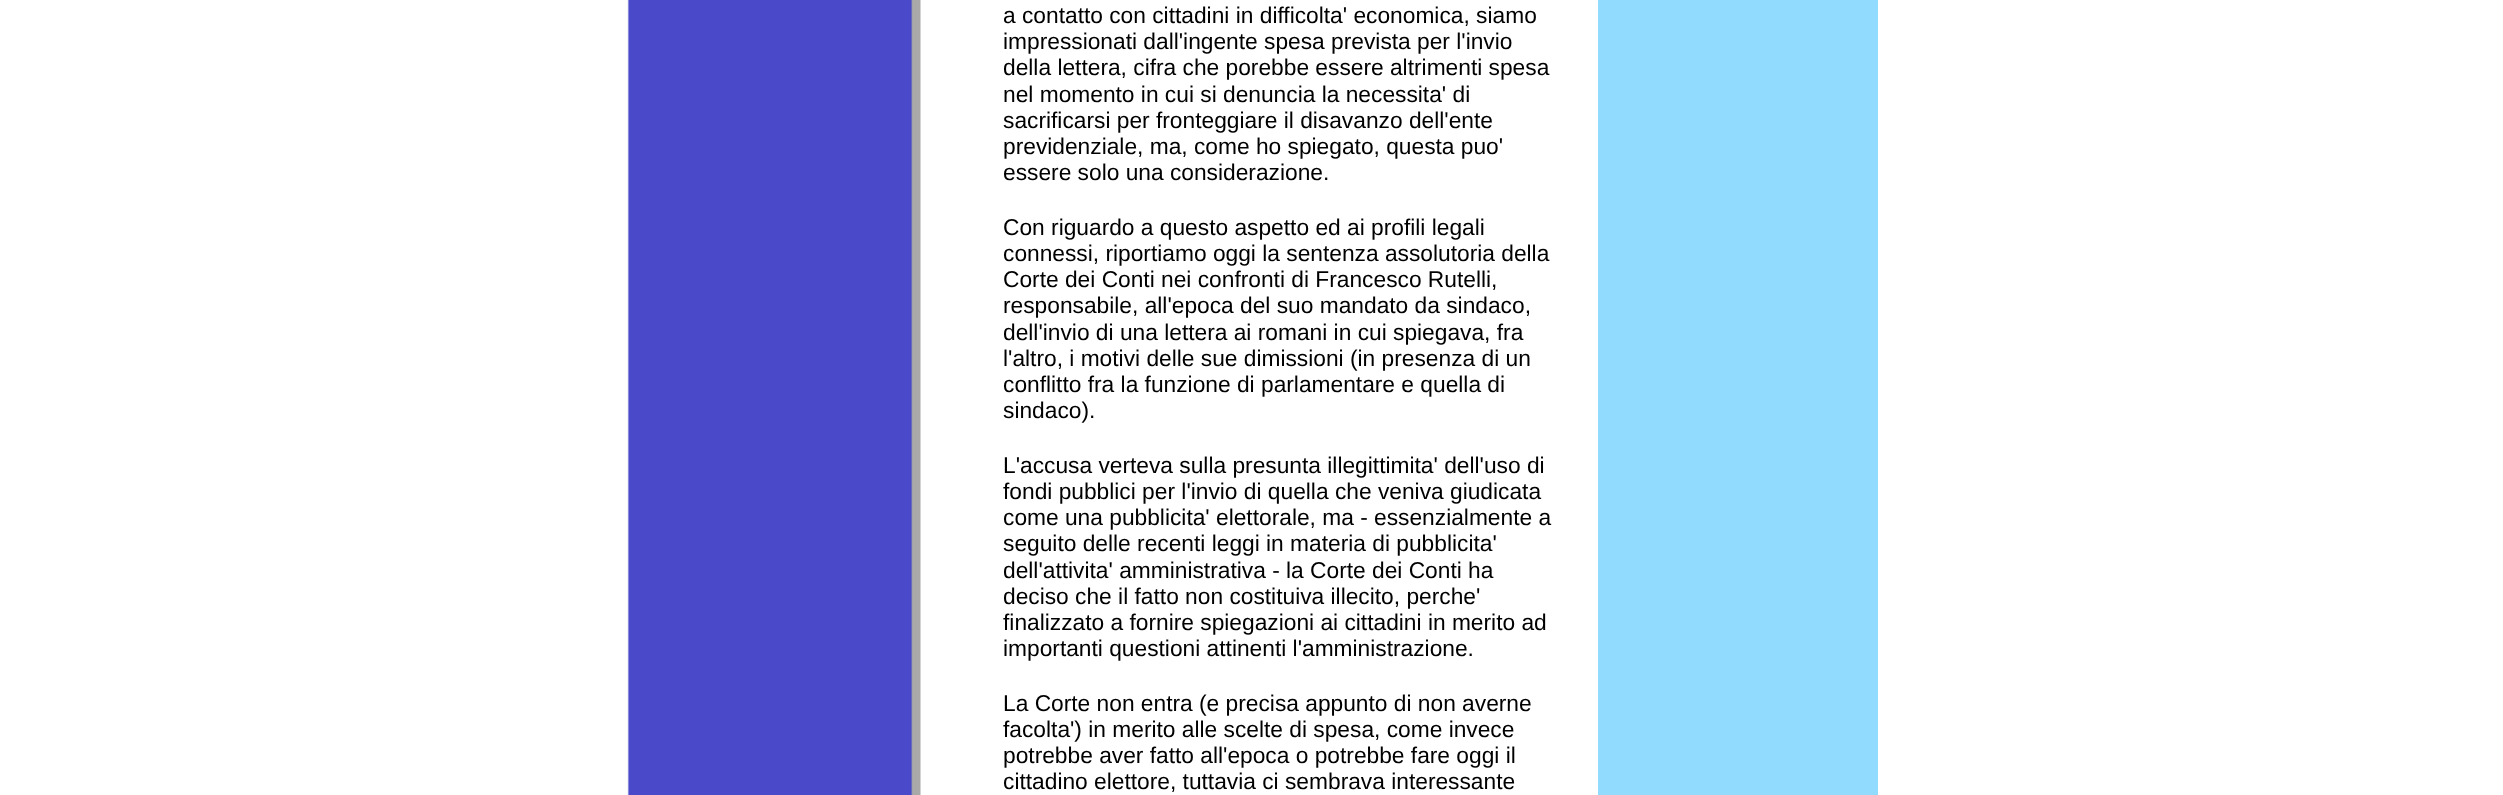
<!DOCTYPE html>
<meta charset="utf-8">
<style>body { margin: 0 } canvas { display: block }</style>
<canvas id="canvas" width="2503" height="795"></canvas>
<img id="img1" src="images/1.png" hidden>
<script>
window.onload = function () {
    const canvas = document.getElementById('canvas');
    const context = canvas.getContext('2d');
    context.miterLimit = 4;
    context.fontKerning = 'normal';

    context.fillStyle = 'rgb(255, 255, 255)';
    context.fillRect(0, 0, 2503, 795);
    context.drawImage(document.getElementById('img1'), 627, 0, 294, 795);
    context.fillStyle = 'rgb(145, 219, 255)';
    context.fillRect(1598, 0, 280, 795);
    context.font = '22.75px Liberation Sans';
    context.fillStyle = 'rgb(0, 0, 0)';
    context.fillText('a contatto con cittadini in difficolta\' economica, siamo', 1003, 23);
    context.fillText('impressionati dall\'ingente spesa prevista per l\'invio', 1003, 49);
    context.fillText('della lettera, cifra che porebbe essere altrimenti spesa', 1003, 75);
    context.fillText('nel momento in cui si denuncia la necessita\' di', 1003, 102);
    context.fillText('sacrificarsi per fronteggiare il disavanzo dell\'ente', 1003, 128);
    context.fillText('previdenziale, ma, come ho spiegato, questa puo\'', 1003, 154);
    context.fillText('essere solo una considerazione.', 1003, 180);
    context.fillText('Con riguardo a questo aspetto ed ai profili legali', 1003, 235);
    context.fillText('connessi, riportiamo oggi la sentenza assolutoria della', 1003, 261);
    context.fillText('Corte dei Conti nei confronti di Francesco Rutelli,', 1003, 287);
    context.fillText('responsabile, all\'epoca del suo mandato da sindaco,', 1003, 313);
    context.fillText('dell\'invio di una lettera ai romani in cui spiegava, fra', 1003, 340);
    context.fillText('l\'altro, i motivi delle sue dimissioni (in presenza di un', 1003, 366);
    context.fillText('conflitto fra la funzione di parlamentare e quella di', 1003, 392);
    context.fillText('sindaco).', 1003, 418);
    context.fillText('L\'accusa verteva sulla presunta illegittimita\' dell\'uso di', 1003, 473);
    context.fillText('fondi pubblici per l\'invio di quella che veniva giudicata', 1003, 499);
    context.fillText('come una pubblicita\' elettorale, ma - essenzialmente a', 1003, 525);
    context.fillText('seguito delle recenti leggi in materia di pubblicita\'', 1003, 551);
    context.fillText('dell\'attivita\' amministrativa - la Corte dei Conti ha', 1003, 578);
    context.fillText('deciso che il fatto non costituiva illecito, perche\'', 1003, 604);
    context.fillText('finalizzato a fornire spiegazioni ai cittadini in merito ad', 1003, 630);
    context.fillText('importanti questioni attinenti l\'amministrazione.', 1003, 656);
    context.fillText('La Corte non entra (e precisa appunto di non averne', 1003, 711);
    context.fillText('facolta\') in merito alle scelte di spesa, come invece', 1003, 737);
    context.fillText('potrebbe aver fatto all\'epoca o potrebbe fare oggi il', 1003, 763);
    context.fillText('cittadino elettore, tuttavia ci sembrava interessante', 1003, 789);
};
</script>
